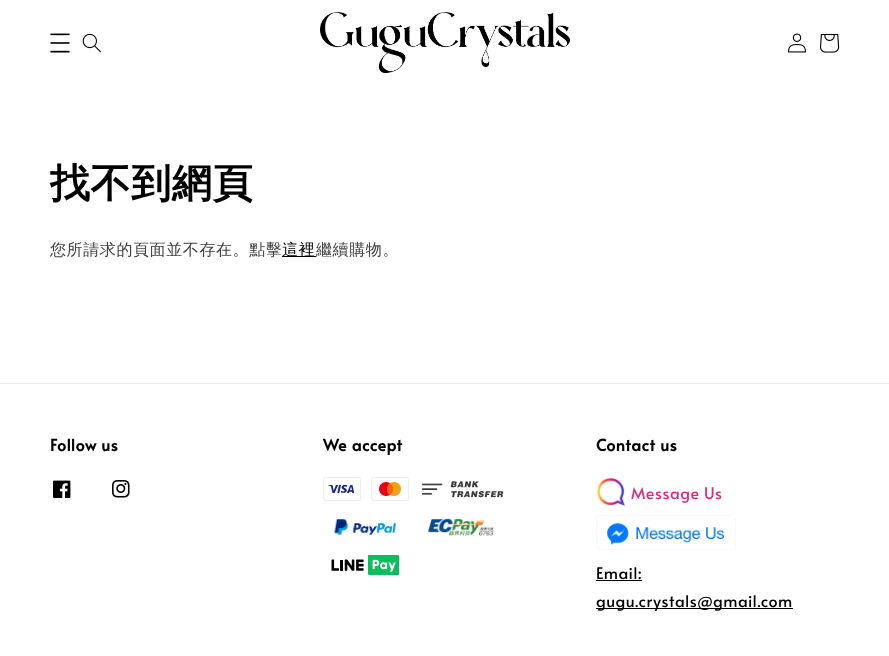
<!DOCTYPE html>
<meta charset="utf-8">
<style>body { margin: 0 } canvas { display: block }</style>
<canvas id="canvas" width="889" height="656"></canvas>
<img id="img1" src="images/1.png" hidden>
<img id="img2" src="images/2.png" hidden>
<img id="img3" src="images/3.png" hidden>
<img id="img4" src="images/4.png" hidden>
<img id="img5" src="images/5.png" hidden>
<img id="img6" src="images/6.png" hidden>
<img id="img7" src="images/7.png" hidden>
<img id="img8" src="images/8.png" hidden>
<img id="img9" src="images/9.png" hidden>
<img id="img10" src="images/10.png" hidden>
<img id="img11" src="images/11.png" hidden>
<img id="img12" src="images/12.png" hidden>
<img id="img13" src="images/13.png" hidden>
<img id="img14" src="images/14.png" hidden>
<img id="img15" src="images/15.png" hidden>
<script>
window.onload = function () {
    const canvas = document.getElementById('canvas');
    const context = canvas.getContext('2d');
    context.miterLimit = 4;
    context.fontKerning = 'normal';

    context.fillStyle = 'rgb(255, 255, 255)';
    context.fillRect(0, 0, 889, 656);
    context.drawImage(document.getElementById('img1'), 50, 33, 20, 20);
    context.drawImage(document.getElementById('img2'), 82, 33, 19, 20);
    context.drawImage(document.getElementById('img3'), 320, 12, 250, 61);
    context.drawImage(document.getElementById('img4'), 788, 33, 18, 20);
    context.drawImage(document.getElementById('img5'), 820, 34, 20, 19);
    context.fillStyle = 'rgb(0, 0, 0)';
    context.fillRect(282, 256, 34, 1);
    context.fillStyle = 'rgb(235, 235, 235)';
    context.fillRect(0, 383, 889, 1);
    context.drawImage(document.getElementById('img6'), 53, 480, 18, 18);
    context.drawImage(document.getElementById('img7'), 112, 480, 18, 18);
    context.drawImage(document.getElementById('img8'), 323, 477, 38, 24);
    context.drawImage(document.getElementById('img9'), 371, 477, 38, 24);
    context.drawImage(document.getElementById('img10'), 421, 481, 83, 17);
    context.drawImage(document.getElementById('img11'), 334, 519, 62, 16);
    context.drawImage(document.getElementById('img12'), 428, 518, 66, 18);
    context.drawImage(document.getElementById('img13'), 331, 555, 68, 20);
    context.drawImage(document.getElementById('img14'), 597, 478, 28, 28);
    context.drawImage(document.getElementById('img15'), 596, 515, 140, 35);
    context.fillStyle = 'rgb(0, 0, 0)';
    context.fillRect(596, 580, 46, 1);
    context.fillRect(596, 608, 197, 1);
    context.letterSpacing = '0.6px';
    context.font = 'bold 40px WenQuanYi Zen Hei';
    context.fillText('找不到網頁', 50, 197);
    context.font = '500 16px WenQuanYi Zen Hei';
    context.fillStyle = 'rgb(64, 64, 64)';
    context.fillText('您所請求的頁面並不存在。點擊', 50, 255);
    context.fillStyle = 'rgb(0, 0, 0)';
    context.fillText('這裡', 282, 255);
    context.fillStyle = 'rgb(64, 64, 64)';
    context.fillText('繼續購物。', 316, 255);
    context.font = 'bold 16px Alata';
    context.fillStyle = 'rgb(0, 0, 0)';
    context.fillText('Follow us', 50, 451);
    context.fillText('We accept', 323, 451);
    context.fillText('Contact us', 596, 451);
    context.font = '16px Alata';
    context.fillStyle = 'rgb(221, 42, 123)';
    context.fillText('Message Us', 631, 499);
    context.fillStyle = 'rgb(0, 0, 0)';
    context.fillText('Email:', 596, 579);
    context.fillText('gugu.crystals@gmail.com', 596, 607);
};
</script>
